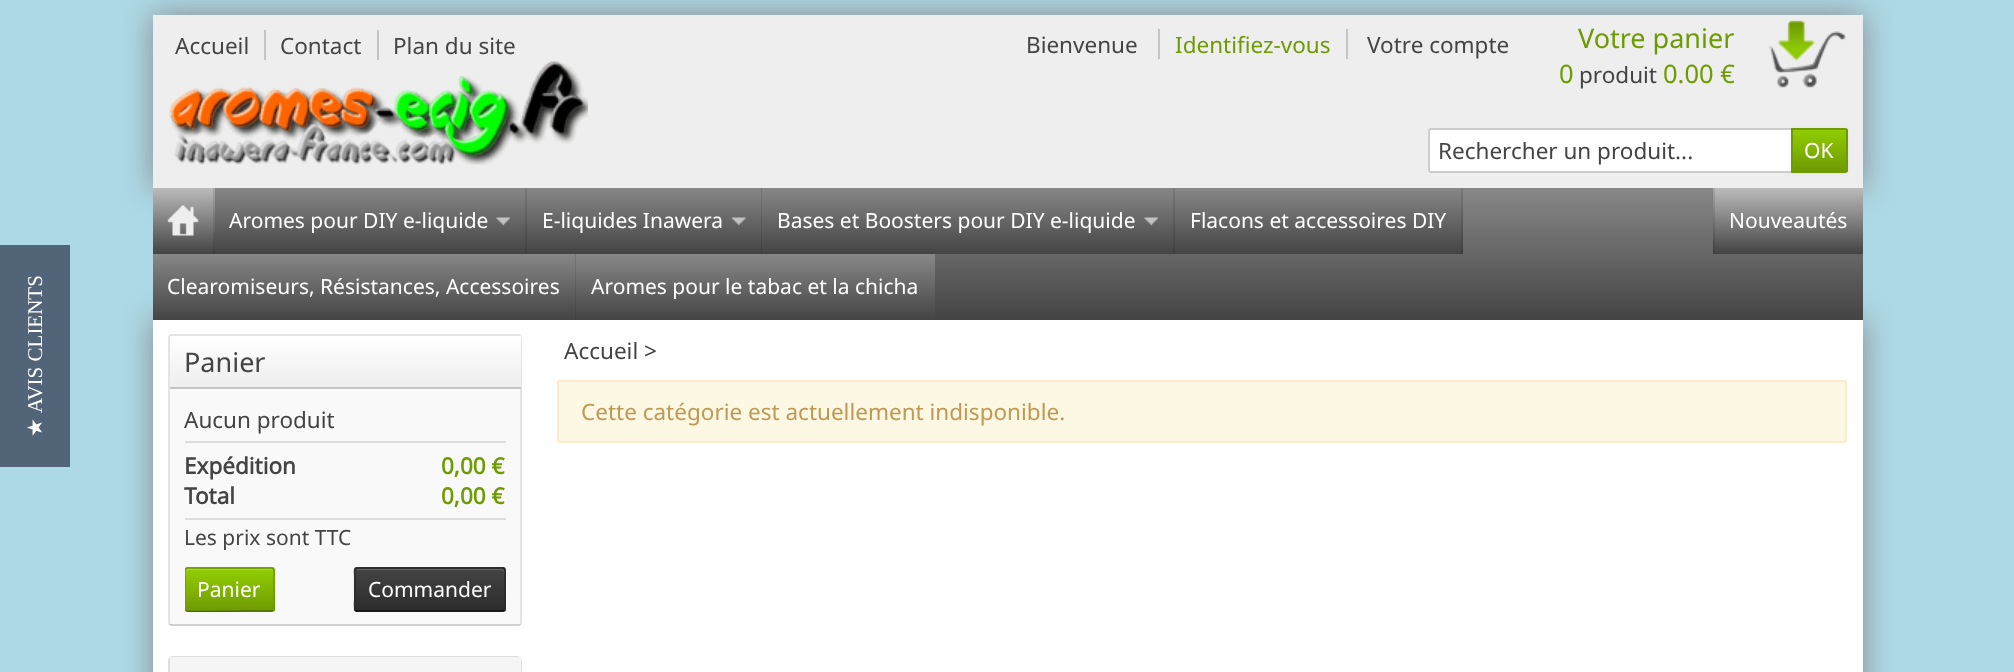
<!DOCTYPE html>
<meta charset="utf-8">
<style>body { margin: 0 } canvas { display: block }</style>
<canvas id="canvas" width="2014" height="672"></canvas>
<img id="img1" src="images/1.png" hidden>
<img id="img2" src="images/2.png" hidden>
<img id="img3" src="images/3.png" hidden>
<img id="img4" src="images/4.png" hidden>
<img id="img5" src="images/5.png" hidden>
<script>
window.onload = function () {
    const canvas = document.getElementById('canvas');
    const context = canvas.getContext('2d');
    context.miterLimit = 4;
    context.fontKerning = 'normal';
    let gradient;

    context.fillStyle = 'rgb(173, 216, 230)';
    context.fillRect(0, 0, 2014, 672);
    context.fillStyle = 'rgb(136, 136, 136)';
    context.filter = 'blur(15px)';
    context.beginPath();
    context.rect(153, 15, 1710, 173);
    context.fill();
    context.filter = 'none';
    context.fillStyle = 'rgb(238, 238, 238)';
    context.fillRect(153, 15, 1710, 173);
    context.fillStyle = 'rgb(196, 196, 196)';
    context.fillRect(264, 30, 2, 30);
    context.fillRect(377, 30, 2, 30);
    context.fillRect(1346, 29, 2, 30);
    context.fillRect(1158, 29, 2, 30);
    context.drawImage(document.getElementById('img1'), 1768, 20, 78, 68);
    context.drawImage(document.getElementById('img2'), 169, 61, 419, 104);
    context.fillStyle = 'rgb(255, 255, 255)';
    context.beginPath();
    context.roundRect(1429, 129, 418, 43, 2);
    context.fill();
    context.strokeStyle = 'rgb(204, 204, 204)';
    context.lineWidth = 2;
    context.stroke();
    context.fillStyle = 'rgba(0, 0, 0, 0.05)';
    context.filter = 'blur(1.5px)';
    context.beginPath();
    context.roundRect(1791, 129, 57, 45, 3);
    context.fill();
    context.filter = 'none';
    context.save();
    context.beginPath();
    context.roundRect(1791, 128, 57, 45, [0, 3, 3, 0]);
    context.clip();
    gradient = context.createLinearGradient(1820, 129, 1820, 171);
    gradient.addColorStop(0, 'rgb(146, 205, 3)');
    gradient.addColorStop(1, 'rgb(110, 155, 2)');
    context.fillStyle = gradient;
    context.fillRect(1793, 129, 55, 42);
    context.restore();
    context.beginPath();
    context.roundRect(1792, 129, 55, 43, [0, 2, 2, 0]);
    context.strokeStyle = 'rgb(110, 155, 2)';
    context.stroke();
    context.fillStyle = 'rgb(136, 136, 136)';
    context.filter = 'blur(15px)';
    context.beginPath();
    context.rect(153, 320, 1710, 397);
    context.fill();
    context.filter = 'none';
    gradient = context.createLinearGradient(1008, 187, 1008, 320);
    gradient.addColorStop(0, 'rgb(136, 136, 136)');
    gradient.addColorStop(1, 'rgb(68, 68, 68)');
    context.fillStyle = gradient;
    context.fillRect(935, 188, 928, 132);
    gradient = context.createLinearGradient(183, 188, 183, 254);
    gradient.addColorStop(0, 'rgb(187, 187, 187)');
    gradient.addColorStop(1, 'rgb(68, 68, 68)');
    context.fillStyle = gradient;
    context.fillRect(153, 188, 62, 66);
    context.fillStyle = 'rgba(0, 0, 0, 0.1)';
    context.fillRect(213, 188, 2, 66);
    context.drawImage(document.getElementById('img3'), 167, 205, 32, 31);
    gradient = context.createLinearGradient(1789, 188, 1789, 254);
    gradient.addColorStop(0, 'rgb(187, 187, 187)');
    gradient.addColorStop(1, 'rgb(68, 68, 68)');
    context.fillStyle = gradient;
    context.fillRect(1713, 188, 150, 66);
    context.fillStyle = 'rgba(0, 0, 0, 0.1)';
    context.fillRect(1713, 188, 2, 66);
    gradient = context.createLinearGradient(370, 187, 370, 254);
    gradient.addColorStop(0, 'rgb(136, 136, 136)');
    gradient.addColorStop(1, 'rgb(68, 68, 68)');
    context.fillStyle = gradient;
    context.fillRect(215, 188, 312, 66);
    context.fillStyle = 'rgba(0, 0, 0, 0.1)';
    context.fillRect(525, 188, 2, 66);
    context.drawImage(document.getElementById('img4'), 496, 217, 14, 9);
    gradient = context.createLinearGradient(644, 187, 644, 254);
    gradient.addColorStop(0, 'rgb(136, 136, 136)');
    gradient.addColorStop(1, 'rgb(68, 68, 68)');
    context.fillStyle = gradient;
    context.fillRect(527, 188, 235, 66);
    context.fillStyle = 'rgba(0, 0, 0, 0.1)';
    context.fillRect(761, 188, 1, 66);
    context.drawImage(document.getElementById('img5'), 731, 217, 15, 9);
    gradient = context.createLinearGradient(968, 187, 968, 254);
    gradient.addColorStop(0, 'rgb(136, 136, 136)');
    gradient.addColorStop(1, 'rgb(68, 68, 68)');
    context.fillStyle = gradient;
    context.fillRect(762, 188, 413, 66);
    context.fillStyle = 'rgba(0, 0, 0, 0.1)';
    context.fillRect(1173, 188, 2, 66);
    context.drawImage(document.getElementById('img4'), 1144, 217, 14, 9);
    gradient = context.createLinearGradient(1318, 187, 1318, 254);
    gradient.addColorStop(0, 'rgb(136, 136, 136)');
    gradient.addColorStop(1, 'rgb(68, 68, 68)');
    context.fillStyle = gradient;
    context.fillRect(1175, 191, 288, 63);
    context.fillStyle = 'rgba(0, 0, 0, 0.1)';
    context.fillRect(1461, 188, 2, 66);
    gradient = context.createLinearGradient(364, 253, 364, 320);
    gradient.addColorStop(0, 'rgb(136, 136, 136)');
    gradient.addColorStop(1, 'rgb(68, 68, 68)');
    context.fillStyle = gradient;
    context.fillRect(153, 254, 423, 66);
    context.fillStyle = 'rgba(0, 0, 0, 0.1)';
    context.fillRect(575, 254, 1, 66);
    gradient = context.createLinearGradient(755, 254, 755, 320);
    gradient.addColorStop(0, 'rgb(136, 136, 136)');
    gradient.addColorStop(1, 'rgb(68, 68, 68)');
    context.fillStyle = gradient;
    context.fillRect(576, 254, 359, 66);
    context.fillStyle = 'rgb(82, 101, 120)';
    context.fillRect(0, 245, 70, 222);
    context.fillStyle = 'rgb(255, 255, 255)';
    context.fillRect(153, 320, 1710, 352);
    context.fillStyle = 'rgb(249, 249, 249)';
    context.beginPath();
    context.roundRect(168, 335, 354, 291, 3);
    context.fill();
    context.beginPath();
    context.moveTo(520.5, 624);
    context.lineTo(519, 625);
    context.lineTo(171, 625);
    context.lineTo(169.5, 624);
    context.strokeStyle = 'rgb(196, 196, 196)';
    context.lineWidth = 1.5;
    context.stroke();
    context.beginPath();
    context.moveTo(169.5, 624);
    context.lineTo(169, 622.5);
    context.lineTo(169, 337.5);
    context.lineTo(169.5, 336);
    context.lineTo(171, 335);
    context.lineTo(519, 335);
    context.lineTo(520.5, 336);
    context.lineTo(521, 337.5);
    context.lineTo(521, 622.5);
    context.lineTo(520.5, 624);
    context.strokeStyle = 'rgb(221, 221, 221)';
    context.stroke();
    gradient = context.createLinearGradient(345, 336, 345, 387);
    gradient.addColorStop(0, 'rgb(255, 255, 255)');
    gradient.addColorStop(1, 'rgb(238, 238, 238)');
    context.fillStyle = gradient;
    context.fillRect(170, 336, 351, 51);
    context.fillStyle = 'rgb(196, 196, 196)';
    context.fillRect(170, 387, 351, 2);
    context.fillStyle = 'rgb(221, 221, 221)';
    context.fillRect(185, 441, 321, 2);
    context.fillRect(185, 518, 321, 2);
    context.save();
    context.beginPath();
    context.rect(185, 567, 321, 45);
    context.clip();
    context.fillStyle = 'rgba(0, 0, 0, 0.05)';
    context.filter = 'blur(1.5px)';
    context.beginPath();
    context.roundRect(185, 569, 90, 45, 3);
    context.fill();
    context.filter = 'none';
    context.restore();
    context.fillStyle = 'rgb(131, 185, 2)';
    context.beginPath();
    context.roundRect(185, 567, 90, 45, 3);
    context.fill();
    context.save();
    context.beginPath();
    context.roundRect(185, 567, 90, 45, 3);
    context.clip();
    gradient = context.createLinearGradient(230, 569, 230, 611);
    gradient.addColorStop(0, 'rgb(146, 205, 3)');
    gradient.addColorStop(1, 'rgb(110, 155, 2)');
    context.fillStyle = gradient;
    context.fillRect(185, 569, 90, 42);
    context.restore();
    context.fillStyle = 'rgba(255, 255, 255, 0.2)';
    context.beginPath();
    context.moveTo(188, 570);
    context.lineTo(272, 570);
    context.lineTo(273, 572);
    context.bezierCurveTo(273, 565, 263, 569, 258, 569);
    context.lineTo(202, 569);
    context.bezierCurveTo(196, 569, 186, 565, 186, 572);
    context.bezierCurveTo(186, 571, 187, 570, 188, 570);
    context.closePath();
    context.fill();
    context.save();
    context.beginPath();
    context.rect(185, 567, 321, 45);
    context.clip();
    context.beginPath();
    context.moveTo(273, 610.5);
    context.lineTo(271.5, 611);
    context.lineTo(257.5, 611);
    context.bezierCurveTo(250, 611, 188, 612, 186.5, 611);
    context.lineTo(186, 610.5);
    context.strokeStyle = 'rgb(74, 105, 1)';
    context.stroke();
    context.beginPath();
    context.moveTo(186, 610.5);
    context.bezierCurveTo(184, 609, 185, 592.5, 185, 589.5);
    context.lineTo(185, 576.5);
    context.bezierCurveTo(185, 575.5, 183.5, 568, 187.5, 568);
    context.lineTo(271.5, 568);
    context.bezierCurveTo(275.5, 568, 274, 575.5, 274, 576.5);
    context.lineTo(274, 589.5);
    context.bezierCurveTo(274, 592.5, 275, 609, 273, 610.5);
    context.strokeStyle = 'rgb(110, 155, 2)';
    context.stroke();
    context.restore();
    context.save();
    context.beginPath();
    context.rect(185, 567, 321, 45);
    context.clip();
    context.fillStyle = 'rgba(0, 0, 0, 0.05)';
    context.filter = 'blur(1.5px)';
    context.beginPath();
    context.roundRect(354, 569, 152, 45, 3);
    context.fill();
    context.filter = 'none';
    context.restore();
    context.fillStyle = 'rgb(58, 58, 58)';
    context.beginPath();
    context.roundRect(354, 567, 152, 45, 3);
    context.fill();
    context.save();
    context.beginPath();
    context.roundRect(354, 567, 152, 45, 3);
    context.clip();
    gradient = context.createLinearGradient(430, 569, 430, 611);
    gradient.addColorStop(0, 'rgb(68, 68, 68)');
    gradient.addColorStop(1, 'rgb(43, 43, 43)');
    context.fillStyle = gradient;
    context.fillRect(354, 569, 152, 42);
    context.restore();
    context.fillStyle = 'rgb(105, 105, 105)';
    context.beginPath();
    context.moveTo(357, 570);
    context.lineTo(502, 570);
    context.bezierCurveTo(503, 570, 504, 571, 504, 572);
    context.bezierCurveTo(504, 571, 504, 569, 502, 569);
    context.lineTo(358, 569);
    context.bezierCurveTo(356, 569, 356, 571, 356, 572);
    context.bezierCurveTo(356, 571, 356, 570, 357, 570);
    context.closePath();
    context.fill();
    context.beginPath();
    context.moveTo(504, 610.5);
    context.lineTo(502.5, 611);
    context.lineTo(357, 611);
    context.lineTo(355.5, 610.5);
    context.strokeStyle = 'rgb(17, 17, 17)';
    context.stroke();
    context.beginPath();
    context.moveTo(355.5, 610.5);
    context.bezierCurveTo(353.5, 609, 355, 598.5, 355, 596);
    context.lineTo(355, 576.5);
    context.bezierCurveTo(355, 575.5, 353, 568, 357, 568);
    context.lineTo(502.5, 568);
    context.bezierCurveTo(506.5, 568, 505, 575.5, 505, 576.5);
    context.lineTo(505, 596);
    context.bezierCurveTo(505, 598.5, 506, 609, 504, 610.5);
    context.strokeStyle = 'rgb(43, 43, 43)';
    context.stroke();
    context.beginPath();
    context.roundRect(169, 657, 352, 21, 4);
    context.strokeStyle = 'rgb(223, 223, 223)';
    context.lineWidth = 2;
    context.stroke();
    context.fillStyle = 'rgb(245, 245, 245)';
    context.fillRect(170, 657, 351, 15);
    context.fillStyle = 'rgb(252, 248, 227)';
    context.beginPath();
    context.roundRect(558, 381, 1288, 61, 2);
    context.fill();
    context.strokeStyle = 'rgb(250, 235, 204)';
    context.stroke();
    context.font = '22.5px Noto Sans';
    context.fillStyle = 'rgb(68, 68, 68)';
    context.fillText('Accueil', 175, 54);
    context.fillText('Contact', 280, 54);
    context.fillText('Plan du site', 393, 54);
    context.fillText('Bienvenue', 1026, 53);
    context.fillStyle = 'rgb(110, 155, 2)';
    context.fillText('Identifiez-vous', 1175, 53);
    context.fillStyle = 'rgb(68, 68, 68)';
    context.fillText('Votre compte', 1367, 53);
    context.font = '27px Noto Sans';
    context.fillStyle = 'rgb(110, 155, 2)';
    context.fillText('Votre panier', 1578, 48);
    context.font = '25.5px Noto Sans';
    context.fillText('0', 1559, 83);
    context.font = '22.5px Noto Sans';
    context.fillStyle = 'rgb(68, 68, 68)';
    context.fillText('produit', 1579, 83);
    context.font = '25.5px Noto Sans';
    context.fillStyle = 'rgb(110, 155, 2)';
    context.fillText('0.00 €', 1663, 83);
    context.font = '22.5px Noto Sans';
    context.fillStyle = 'rgb(68, 68, 68)';
    context.fillText('Rechercher un produit...', 1438, 159);
    context.font = '21px Noto Sans';
    context.fillStyle = 'rgb(255, 255, 255)';
    context.fillText('OK', 1804, 158);
    context.fillText('Nouveautés', 1729, 228);
    context.fillText('Aromes pour DIY e-liquide', 229, 228);
    context.fillText('E-liquides Inawera', 542, 228);
    context.fillText('Bases et Boosters pour DIY e-liquide', 777, 228);
    context.fillText('Flacons et accessoires DIY', 1190, 228);
    context.fillText('Clearomiseurs, Résistances, Accessoires', 167, 294);
    context.fillText('Aromes pour le tabac et la chicha', 591, 294);
    context.font = '21px Liberation Serif';
    context.save();
    context.translate(42, 413);
    context.rotate(-90 * Math.PI / 180);
    context.fillText('AVIS CLIENTS', 0, 0);
    context.restore();
    context.font = '21px DejaVu Sans';
    context.save();
    context.translate(42, 437);
    context.rotate(-90 * Math.PI / 180);
    context.fillText('★', 0, 0);
    context.restore();
    context.font = '27px Noto Sans';
    context.fillStyle = 'rgb(68, 68, 68)';
    context.fillText('Panier', 184, 372);
    context.font = '22.5px Noto Sans';
    context.fillText('Aucun produit', 184, 428);
    context.font = 'bold 22.5px Noto Sans';
    context.fillText('Expédition', 184, 474);
    context.fillStyle = 'rgb(110, 155, 2)';
    context.fillText('0,00 €', 441, 474);
    context.fillStyle = 'rgb(68, 68, 68)';
    context.fillText('Total', 184, 504);
    context.fillStyle = 'rgb(110, 155, 2)';
    context.fillText('0,00 €', 441, 504);
    context.font = '21px Noto Sans';
    context.fillStyle = 'rgb(68, 68, 68)';
    context.fillText('Les prix sont TTC', 184, 545);
    context.fillStyle = 'rgb(255, 255, 255)';
    context.fillText('Panier', 197, 597);
    context.fillText('Commander', 368, 597);
    context.font = '22.5px Noto Sans';
    context.fillStyle = 'rgb(68, 68, 68)';
    context.fillText('Accueil >', 564, 359);
    context.fillStyle = 'rgb(192, 152, 83)';
    context.fillText('Cette catégorie est actuellement indisponible.', 581, 420);
};
</script>
